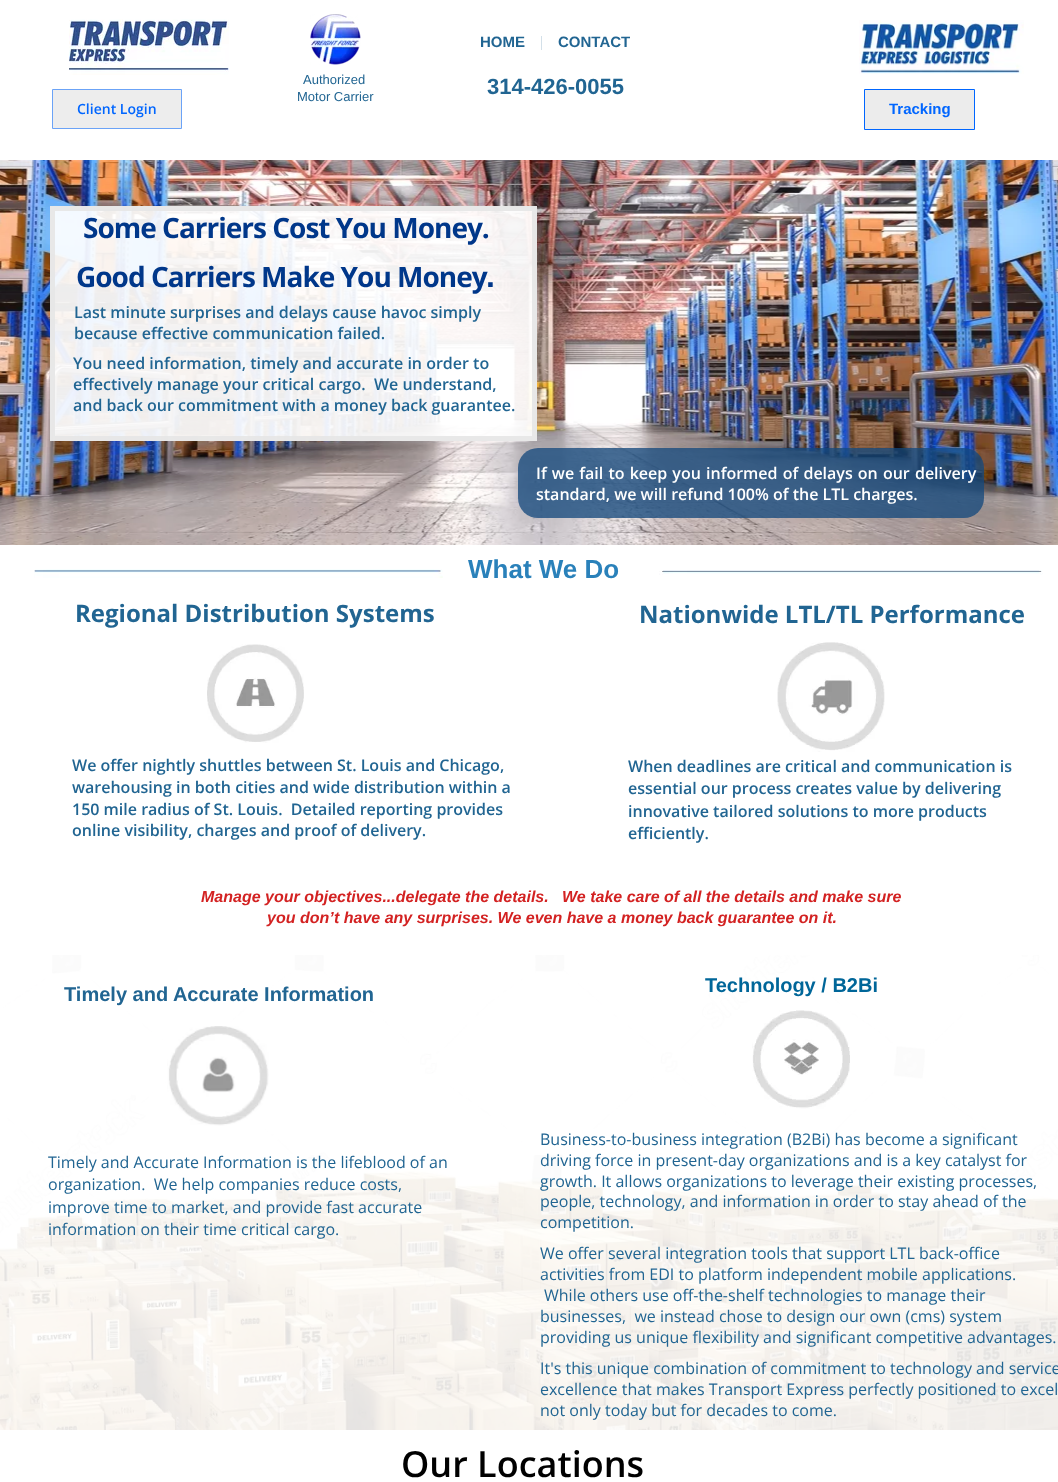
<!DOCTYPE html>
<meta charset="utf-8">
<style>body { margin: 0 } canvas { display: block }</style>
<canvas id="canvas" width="1058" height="1482"></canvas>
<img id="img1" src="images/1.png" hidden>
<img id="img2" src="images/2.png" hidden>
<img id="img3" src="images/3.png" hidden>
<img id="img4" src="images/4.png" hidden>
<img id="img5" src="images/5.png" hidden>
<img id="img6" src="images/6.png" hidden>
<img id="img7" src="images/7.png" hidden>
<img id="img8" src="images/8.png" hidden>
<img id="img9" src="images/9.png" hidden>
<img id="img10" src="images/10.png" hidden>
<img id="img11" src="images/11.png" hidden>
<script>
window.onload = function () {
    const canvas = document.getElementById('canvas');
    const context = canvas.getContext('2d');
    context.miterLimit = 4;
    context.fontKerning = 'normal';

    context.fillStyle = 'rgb(255, 255, 255)';
    context.fillRect(0, 0, 1058, 1482);
    context.drawImage(document.getElementById('img1'), 69, 19, 160, 56);
    context.drawImage(document.getElementById('img2'), 310, 14, 51, 51);
    context.fillStyle = 'rgb(211, 224, 233)';
    context.fillRect(541, 36, 1, 14);
    context.drawImage(document.getElementById('img3'), 859, 20, 165, 54);
    context.fillStyle = 'rgb(237, 237, 237)';
    context.beginPath();
    context.rect(52.5, 89.5, 129, 39);
    context.fill();
    context.strokeStyle = 'rgb(107, 163, 247)';
    context.stroke();
    context.fillStyle = 'rgb(236, 236, 236)';
    context.beginPath();
    context.rect(864.5, 89.5, 110, 40);
    context.fill();
    context.strokeStyle = 'rgb(0, 102, 255)';
    context.stroke();
    context.drawImage(document.getElementById('img4'), 0, 160, 1058, 385);
    context.fillStyle = 'rgba(255, 255, 255, 0.92)';
    context.fillRect(50, 206, 487, 235);
    context.strokeStyle = 'rgba(230, 230, 230, 0.92)';
    context.lineWidth = 5;
    context.strokeRect(52.5, 208.5, 482, 230);
    context.fillStyle = 'rgba(21, 73, 125, 0.77)';
    context.beginPath();
    context.roundRect(518, 448, 466, 70, 20);
    context.fill();
    context.drawImage(document.getElementById('img5'), 34, 569, 409, 9);
    context.drawImage(document.getElementById('img6'), 659, 570, 384, 5);
    context.drawImage(document.getElementById('img7'), 207, 644, 97, 99);
    context.drawImage(document.getElementById('img8'), 777, 642, 108, 110);
    context.drawImage(document.getElementById('img9'), 0, 955, 1058, 475);
    context.drawImage(document.getElementById('img10'), 167, 1026, 102, 100);
    context.drawImage(document.getElementById('img11'), 752, 1010, 98, 99);
    context.font = 'bold 15px Liberation Sans';
    context.fillStyle = 'rgb(33, 101, 146)';
    context.fillText('HOME', 480, 47);
    context.fillText('CONTACT', 558, 47);
    context.font = '13px Liberation Sans';
    context.fillText('Authorized', 303, 84);
    context.font = 'bold 22px Liberation Sans';
    context.fillText('314-426-0055', 487, 94);
    context.font = '13px Liberation Sans';
    context.fillText('Motor Carrier', 297, 101);
    context.font = '600 14px Open Sans';
    context.fillStyle = 'rgb(0, 102, 255)';
    context.fillText('Client Login', 77, 114);
    context.font = 'bold 15px Liberation Sans';
    context.fillText('Tracking', 889, 114);
    context.letterSpacing = '-1px';
    context.font = 'bold 28px Open Sans';
    context.fillStyle = 'rgb(0, 55, 138)';
    context.fillText('Some Carriers Cost You Money.', 83, 238);
    context.fillText('Good Carriers Make You Money', 76, 287);
    context.letterSpacing = '0px';
    context.font = 'bold 32px Liberation Sans';
    context.fillText('.', 486, 287);
    context.font = '600 16px Open Sans';
    context.fillStyle = 'rgb(33, 101, 146)';
    context.fillText('Last minute surprises and delays cause havoc simply', 74, 318);
    context.fillText('because effective communication failed.', 74, 339);
    context.fillText('You need information, timely and accurate in order to', 73, 369);
    context.fillText('effectively manage your critical cargo.  We understand,', 73, 390);
    context.fillText('and back our commitment with a money back guarantee.', 73, 411);
    context.wordSpacing = '1px';
    context.fillStyle = 'rgb(255, 255, 255)';
    context.fillText('If we fail to keep you informed of delays on our delivery', 536, 479);
    context.wordSpacing = '0px';
    context.fillText('standard, we will refund 100% of the LTL charges.', 536, 500);
    context.font = 'bold 26px Liberation Sans';
    context.fillStyle = 'rgb(42, 129, 186)';
    context.fillText('What We Do', 468, 578);
    context.font = 'bold 24px Open Sans';
    context.fillStyle = 'rgb(33, 101, 146)';
    context.fillText('Regional Distribution Systems', 75, 622);
    context.fillText('Nationwide LTL/TL Performance', 639, 623);
    context.font = '600 16px Open Sans';
    context.fillText('We offer nightly shuttles between St. Louis and Chicago,', 72, 771);
    context.fillText('warehousing in both cities and wide distribution within a', 72, 793);
    context.fillText('150 mile radius of St. Louis.  Detailed reporting provides', 72, 815);
    context.fillText('online visibility, charges and proof of delivery.', 72, 836);
    context.fillText('When deadlines are critical and communication is', 628, 772);
    context.fillText('essential our process creates value by delivering', 628, 794);
    context.fillText('innovative tailored solutions to more products', 628, 817);
    context.fillText('efficiently.', 628, 839);
    context.font = 'italic bold 16px Liberation Sans';
    context.fillStyle = 'rgb(211, 34, 34)';
    context.fillText('Manage your objectives...delegate the details.   We take care of all the details and make sure', 201, 902);
    context.fillText('you don’t have any surprises. We even have a money back guarantee on it.', 267, 923);
    context.font = 'bold 20px Liberation Sans';
    context.fillStyle = 'rgb(33, 101, 146)';
    context.fillText('Timely and Accurate Information', 64, 1001);
    context.fillStyle = 'rgb(0, 102, 153)';
    context.fillText('Technology / B2Bi', 705, 992);
    context.font = '16px Open Sans';
    context.fillStyle = 'rgb(33, 101, 146)';
    context.fillText('Timely and Accurate Information is the lifeblood of an', 48, 1168);
    context.fillText('organization.  We help companies reduce costs,', 48, 1190);
    context.fillText('improve time to market, and provide fast accurate', 48, 1213);
    context.fillText('information on their time critical cargo.', 48, 1235);
    context.fillText('Business-to-business integration (B2Bi) has become a significant', 540, 1145);
    context.fillText('driving force in present-day organizations and is a key catalyst for', 540, 1166);
    context.fillText('growth. It allows organizations to leverage their existing processes,', 540, 1187);
    context.fillText('people, technology, and information in order to stay ahead of the', 540, 1207);
    context.fillText('competition.', 540, 1228);
    context.fillText('We offer several integration tools that support LTL back-office', 540, 1259);
    context.fillText('activities from EDI to platform independent mobile applications.', 540, 1280);
    context.fillText('While others use off-the-shelf technologies to manage their', 544, 1301);
    context.fillText('businesses,  we instead chose to design our own (cms) system', 540, 1322);
    context.fillText('providing us unique flexibility and significant competitive advantages.', 540, 1343);
    context.fillText('It\'s this unique combination of commitment to technology and service', 540, 1374);
    context.fillText('excellence that makes Transport Express perfectly positioned to excel', 540, 1395);
    context.fillText('not only today but for decades to come.', 540, 1416);
    context.font = '600 36px Open Sans';
    context.fillStyle = 'rgb(0, 0, 0)';
    context.fillText('Our Locations', 401, 1477);
};
</script>
